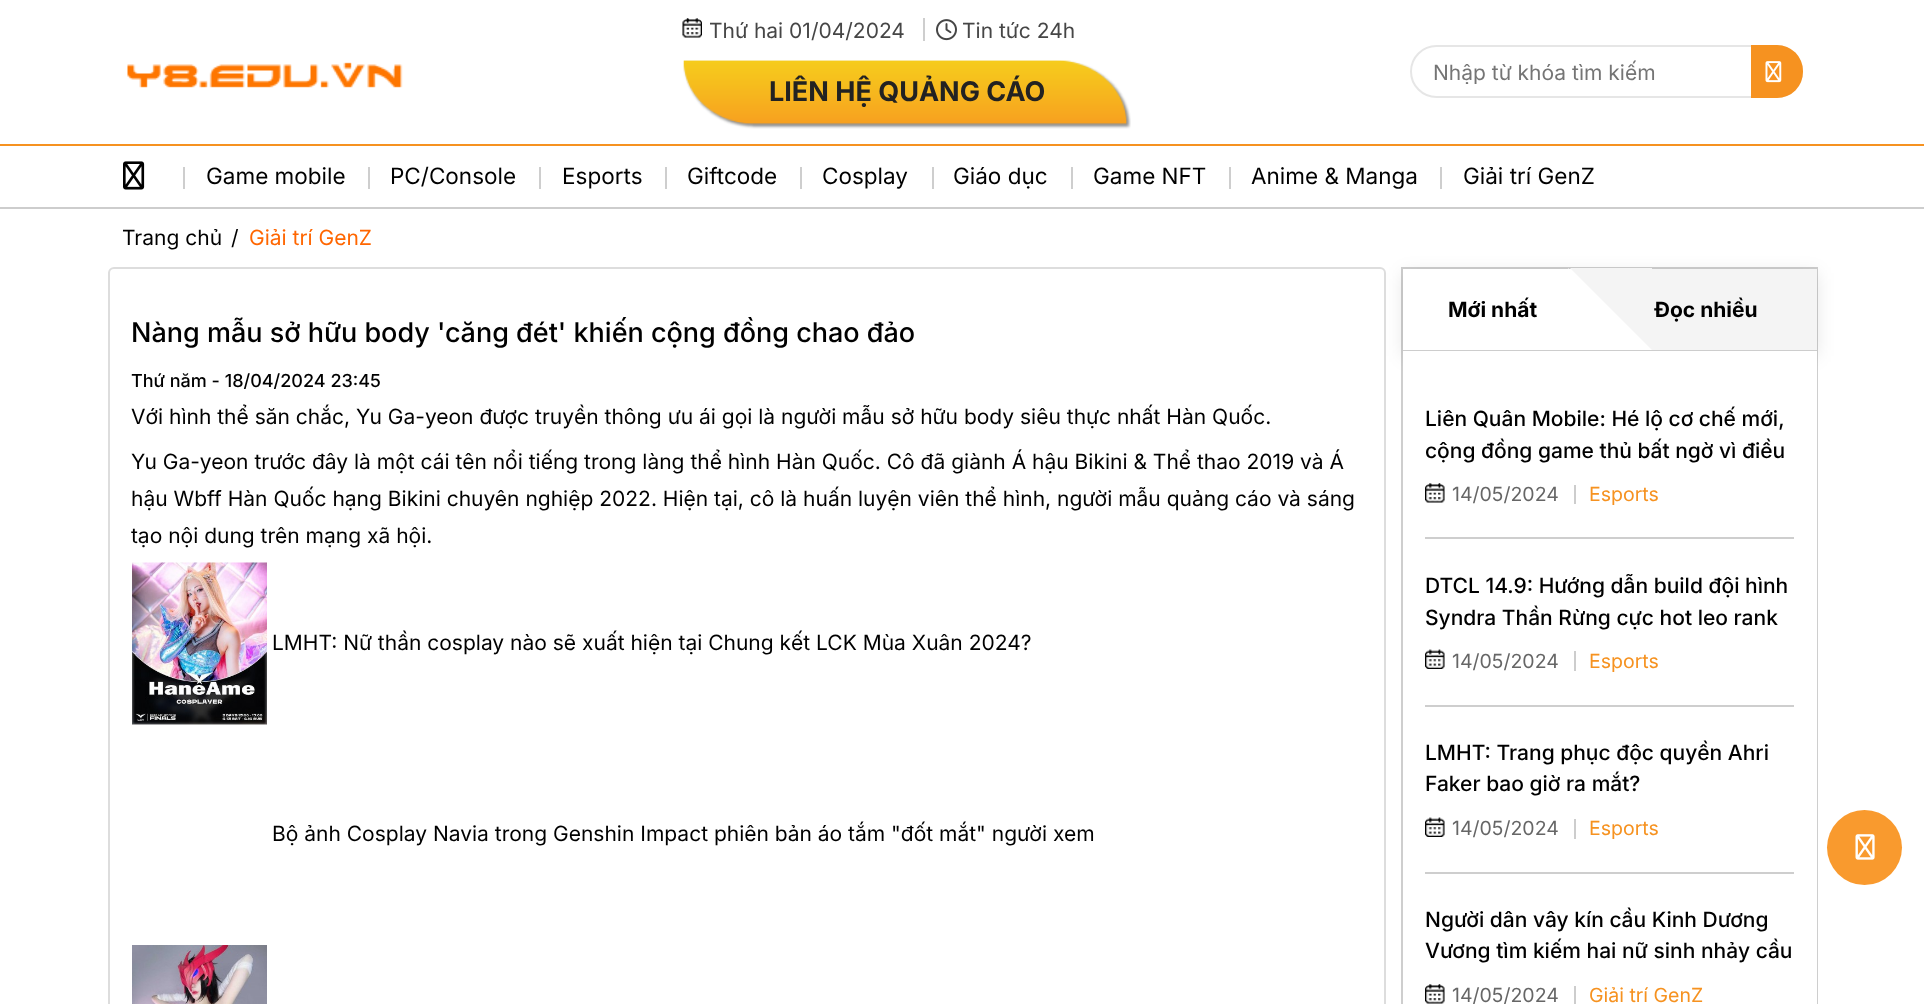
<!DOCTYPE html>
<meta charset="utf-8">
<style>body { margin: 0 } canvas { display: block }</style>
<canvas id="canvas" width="1924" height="1004"></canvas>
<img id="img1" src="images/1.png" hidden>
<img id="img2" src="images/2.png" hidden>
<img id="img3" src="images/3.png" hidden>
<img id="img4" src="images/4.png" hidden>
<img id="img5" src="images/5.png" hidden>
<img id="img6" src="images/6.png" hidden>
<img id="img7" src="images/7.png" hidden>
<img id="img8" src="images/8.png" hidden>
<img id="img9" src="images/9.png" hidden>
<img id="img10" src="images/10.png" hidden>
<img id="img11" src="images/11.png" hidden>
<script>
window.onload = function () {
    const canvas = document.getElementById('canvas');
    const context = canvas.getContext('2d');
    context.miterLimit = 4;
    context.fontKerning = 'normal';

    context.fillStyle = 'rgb(255, 255, 255)';
    context.fillRect(0, 0, 1924, 1004);
    context.drawImage(document.getElementById('img1'), 127, 62, 276, 26);
    context.drawImage(document.getElementById('img2'), 682, 18, 20, 20);
    context.fillStyle = 'rgb(206, 206, 206)';
    context.fillRect(923, 18, 2, 23);
    context.drawImage(document.getElementById('img3'), 936, 19, 21, 22);
    context.drawImage(document.getElementById('img4'), 683, 60, 448, 69);
    context.beginPath();
    context.roundRect(1411, 46, 391, 51, 25.5);
    context.strokeStyle = 'rgb(230, 230, 230)';
    context.lineWidth = 2;
    context.stroke();
    context.fillStyle = 'rgb(246, 146, 32)';
    context.beginPath();
    context.roundRect(1751, 45, 52, 53, [0, 26, 26, 0]);
    context.fill();
    context.drawImage(document.getElementById('img5'), 1765, 61, 17, 22);
    context.fillRect(0, 144, 1924, 2);
    context.fillStyle = 'rgb(205, 205, 205)';
    context.fillRect(0, 207, 1924, 2);
    context.drawImage(document.getElementById('img6'), 123, 161, 22, 29);
    context.fillStyle = 'rgb(206, 206, 206)';
    context.fillRect(183, 167, 2, 22);
    context.fillRect(368, 167, 2, 22);
    context.fillRect(539, 167, 2, 22);
    context.fillRect(665, 167, 2, 22);
    context.fillRect(800, 167, 2, 22);
    context.fillRect(932, 167, 2, 22);
    context.fillRect(1071, 167, 2, 22);
    context.fillRect(1229, 167, 2, 22);
    context.fillRect(1440, 167, 2, 22);
    context.beginPath();
    context.roundRect(109, 268, 1276, 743, 5);
    context.strokeStyle = 'rgb(221, 221, 221)';
    context.stroke();
    context.drawImage(document.getElementById('img7'), 132, 562, 135, 163);
    context.drawImage(document.getElementById('img8'), 132, 945, 135, 59);
    context.strokeStyle = 'rgb(206, 206, 206)';
    context.strokeRect(1402, 268, 415, 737);
    context.save();
    context.beginPath();
    context.moveTo(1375, 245);
    context.lineTo(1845, 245);
    context.lineTo(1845, 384);
    context.lineTo(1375, 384);
    context.closePath();
    context.moveTo(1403, 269);
    context.lineTo(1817, 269);
    context.lineTo(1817, 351);
    context.lineTo(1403, 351);
    context.closePath();
    context.clip('evenodd');
    context.fillStyle = 'rgba(0, 0, 0, 0.1)';
    context.filter = 'blur(9px)';
    context.beginPath();
    context.rect(1403, 273, 414, 83);
    context.fill();
    context.filter = 'none';
    context.restore();
    context.fillStyle = 'rgb(205, 205, 205)';
    context.fillRect(1403, 350, 414, 1);
    context.fillStyle = 'rgb(244, 244, 244)';
    context.beginPath();
    context.moveTo(1652, 268);
    context.lineTo(1652, 350);
    context.lineTo(1570, 268);
    context.closePath();
    context.fill();
    context.fillStyle = 'rgb(255, 255, 255)';
    context.beginPath();
    context.moveTo(1568, 350);
    context.lineTo(1568, 268);
    context.lineTo(1648, 350);
    context.closePath();
    context.fill();
    context.fillStyle = 'rgb(244, 244, 244)';
    context.fillRect(1652, 269, 165, 81);
    context.fillStyle = 'rgb(255, 255, 255)';
    context.fillRect(1403, 351, 414, 653);
    context.fillStyle = 'rgb(206, 206, 206)';
    context.fillRect(1425, 537, 369, 2);
    context.drawImage(document.getElementById('img9'), 1425, 483, 20, 20);
    context.fillStyle = 'rgb(205, 205, 205)';
    context.fillRect(1574, 485, 2, 19);
    context.fillStyle = 'rgb(206, 206, 206)';
    context.fillRect(1425, 705, 369, 2);
    context.drawImage(document.getElementById('img10'), 1425, 649, 20, 20);
    context.fillStyle = 'rgb(205, 205, 205)';
    context.fillRect(1574, 651, 2, 20);
    context.fillStyle = 'rgb(206, 206, 206)';
    context.fillRect(1425, 872, 369, 2);
    context.drawImage(document.getElementById('img10'), 1425, 817, 20, 20);
    context.fillStyle = 'rgb(205, 205, 205)';
    context.fillRect(1574, 819, 2, 20);
    context.drawImage(document.getElementById('img9'), 1425, 984, 20, 20);
    context.fillRect(1574, 986, 2, 18);
    context.fillStyle = 'rgb(249, 154, 46)';
    context.beginPath();
    context.arc(1864.5, 847.5, 37.5, 0, 2 * Math.PI);
    context.fill();
    context.drawImage(document.getElementById('img11'), 1855, 834, 20, 26);
    context.font = '21px Inter';
    context.fillStyle = 'rgb(70, 70, 70)';
    context.fillText('Thứ hai 01/04/2024', 709, 38);
    context.fillText('Tin tức 24h', 962, 38);
    context.font = 'bold 27px Inter';
    context.fillStyle = 'rgb(34, 34, 34)';
    context.fillText('LIÊN HỆ QUẢNG CÁO', 769, 101);
    context.save();
    context.beginPath();
    context.rect(1434, 59, 309, 25);
    context.clip();
    context.font = '21px Inter';
    context.fillStyle = 'rgb(117, 117, 117)';
    context.fillText('Nhập từ khóa tìm kiếm', 1433, 80);
    context.restore();
    context.font = '22.5px Inter';
    context.fillStyle = 'rgb(0, 0, 0)';
    context.fillText('Game mobile', 206, 184);
    context.fillText('PC/Console', 390, 184);
    context.fillText('Esports', 562, 184);
    context.fillText('Giftcode', 687, 184);
    context.fillText('Cosplay', 822, 184);
    context.fillText('Giáo dục', 953, 184);
    context.fillText('Game NFT', 1093, 184);
    context.fillText('Anime & Manga', 1251, 184);
    context.fillText('Giải trí GenZ', 1463, 184);
    context.font = '21px Inter';
    context.fillText('Trang chủ', 122, 245);
    context.fillText('/', 231, 245);
    context.fillStyle = 'rgb(255, 102, 0)';
    context.fillText('Giải trí GenZ', 249, 245);
    context.font = '500 27px Inter';
    context.fillStyle = 'rgb(0, 0, 0)';
    context.fillText('Nàng mẫu sở hữu body \'căng đét\' khiến cộng đồng chao đảo', 131, 342);
    context.font = '500 18px Inter';
    context.fillText('Thứ năm - 18/04/2024 23:45', 131, 387);
    context.font = '21px Inter';
    context.fillText('Với hình thể săn chắc, Yu Ga-yeon được truyền thông ưu ái gọi là người mẫu sở hữu body siêu thực nhất Hàn Quốc.', 131, 424);
    context.fillText('Yu Ga-yeon trước đây là một cái tên nổi tiếng trong làng thể hình Hàn Quốc. Cô đã giành Á hậu Bikini & Thể thao 2019 và Á', 131, 469);
    context.fillText('hậu Wbff Hàn Quốc hạng Bikini chuyên nghiệp 2022. Hiện tại, cô là huấn luyện viên thể hình, người mẫu quảng cáo và sáng', 131, 506);
    context.fillText('tạo nội dung trên mạng xã hội.', 131, 543);
    context.fillText('LMHT: Nữ thần cosplay nào sẽ xuất hiện tại Chung kết LCK Mùa Xuân 2024?', 272, 650);
    context.fillText('Bộ ảnh Cosplay Navia trong Genshin Impact phiên bản áo tắm "đốt mắt" người xem', 272, 841);
    context.font = 'bold 21px Inter';
    context.fillText('Mới nhất', 1448, 317);
    context.fillText('Đọc nhiều', 1654, 317);
    context.font = '500 21px Inter';
    context.fillText('Liên Quân Mobile: Hé lộ cơ chế mới,', 1425, 426);
    context.fillText('cộng đồng game thủ bất ngờ vì điều', 1425, 458);
    context.font = '19.5px Inter';
    context.fillStyle = 'rgb(102, 102, 102)';
    context.fillText('14/05/2024', 1452, 501);
    context.fillStyle = 'rgb(246, 146, 32)';
    context.fillText('Esports', 1589, 501);
    context.font = '500 21px Inter';
    context.fillStyle = 'rgb(0, 0, 0)';
    context.fillText('DTCL 14.9: Hướng dẫn build đội hình', 1425, 593);
    context.fillText('Syndra Thần Rừng cực hot leo rank', 1425, 625);
    context.font = '19.5px Inter';
    context.fillStyle = 'rgb(102, 102, 102)';
    context.fillText('14/05/2024', 1452, 668);
    context.fillStyle = 'rgb(246, 146, 32)';
    context.fillText('Esports', 1589, 668);
    context.font = '500 21px Inter';
    context.fillStyle = 'rgb(0, 0, 0)';
    context.fillText('LMHT: Trang phục độc quyền Ahri', 1425, 760);
    context.fillText('Faker bao giờ ra mắt?', 1425, 791);
    context.font = '19.5px Inter';
    context.fillStyle = 'rgb(102, 102, 102)';
    context.fillText('14/05/2024', 1452, 835);
    context.fillStyle = 'rgb(246, 146, 32)';
    context.fillText('Esports', 1589, 835);
    context.font = '500 21px Inter';
    context.fillStyle = 'rgb(0, 0, 0)';
    context.fillText('Người dân vây kín cầu Kinh Dương', 1425, 927);
    context.fillText('Vương tìm kiếm hai nữ sinh nhảy cầu', 1425, 958);
    context.font = '19.5px Inter';
    context.fillStyle = 'rgb(102, 102, 102)';
    context.fillText('14/05/2024', 1452, 1002);
    context.fillStyle = 'rgb(246, 146, 32)';
    context.fillText('Giải trí GenZ', 1589, 1002);
};
</script>
